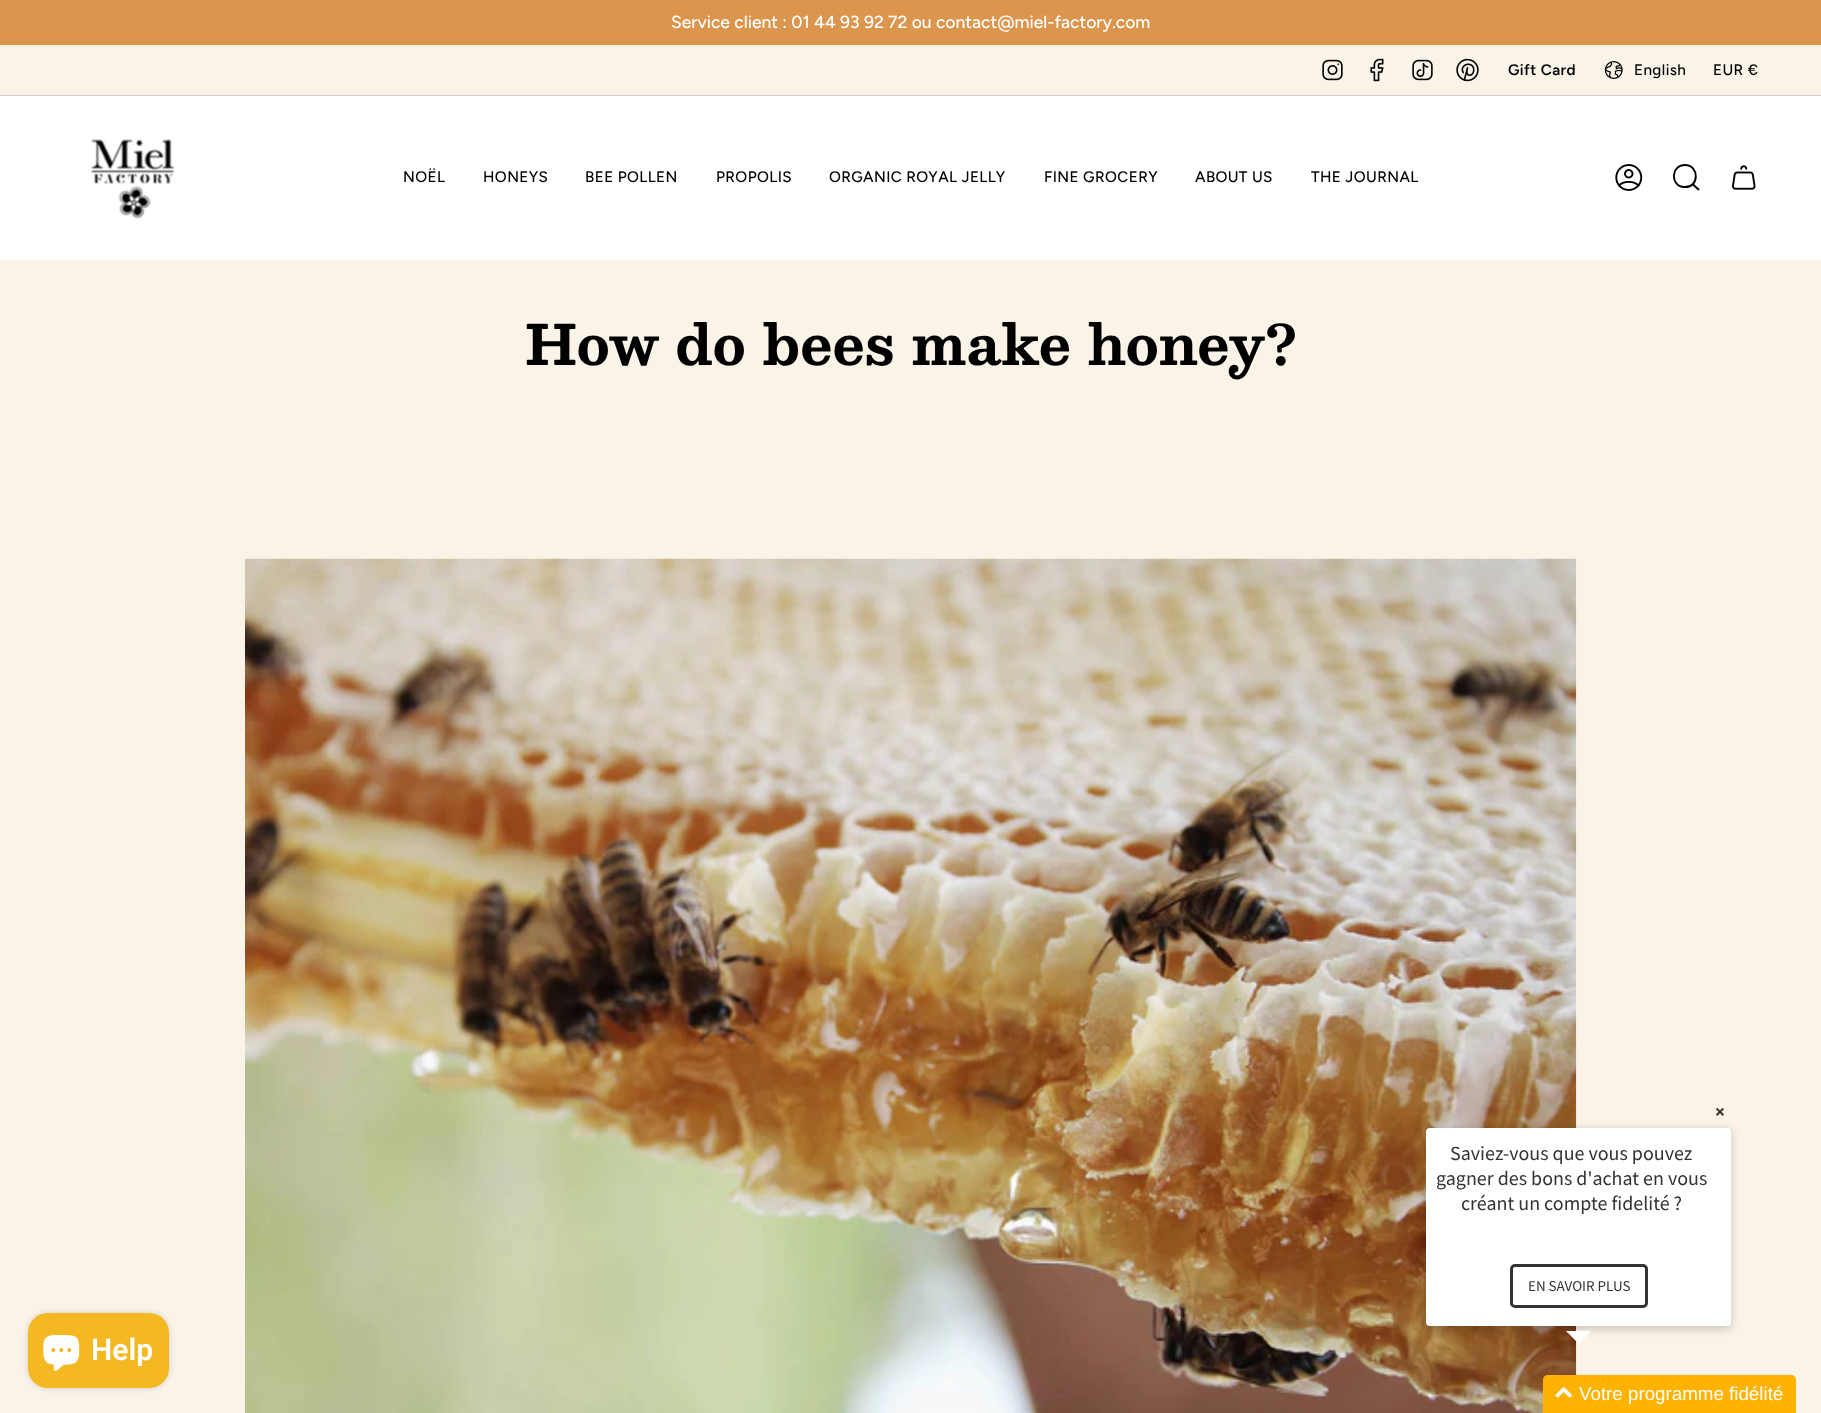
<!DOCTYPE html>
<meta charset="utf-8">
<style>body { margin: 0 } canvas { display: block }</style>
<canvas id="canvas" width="1821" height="1413"></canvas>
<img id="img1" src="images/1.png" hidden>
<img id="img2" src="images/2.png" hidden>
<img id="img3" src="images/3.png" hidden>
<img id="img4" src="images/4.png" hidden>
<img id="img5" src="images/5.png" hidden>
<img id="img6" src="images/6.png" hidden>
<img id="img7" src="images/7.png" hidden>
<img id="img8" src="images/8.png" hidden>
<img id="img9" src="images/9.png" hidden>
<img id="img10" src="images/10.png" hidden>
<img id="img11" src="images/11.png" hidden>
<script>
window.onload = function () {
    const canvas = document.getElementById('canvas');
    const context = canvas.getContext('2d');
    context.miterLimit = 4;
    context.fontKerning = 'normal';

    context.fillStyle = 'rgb(255, 255, 255)';
    context.fillRect(0, 0, 1821, 1413);
    context.fillStyle = 'rgb(220, 149, 77)';
    context.fillRect(0, 0, 1821, 45);
    context.fillStyle = 'rgb(250, 243, 232)';
    context.fillRect(0, 45, 1821, 50);
    context.drawImage(document.getElementById('img1'), 1322, 59, 21, 22);
    context.drawImage(document.getElementById('img2'), 1370, 58, 14, 24);
    context.drawImage(document.getElementById('img3'), 1412, 59, 21, 22);
    context.drawImage(document.getElementById('img4'), 1456, 58, 23, 24);
    context.drawImage(document.getElementById('img5'), 1604, 61, 19, 18);
    context.fillStyle = 'rgb(204, 204, 204)';
    context.fillRect(0, 95, 1821, 1);
    context.drawImage(document.getElementById('img6'), 90, 139, 85, 80);
    context.drawImage(document.getElementById('img7'), 1615, 164, 28, 27);
    context.beginPath();
    context.moveTo(1685, 165);
    context.bezierCurveTo(1699.5, 165, 1699.5, 188, 1684.5, 187);
    context.bezierCurveTo(1670, 186.5, 1670.5, 165, 1685, 165);
    context.closePath();
    context.moveTo(1692.5, 184);
    context.lineTo(1699, 190);
    context.strokeStyle = 'rgb(0, 0, 0)';
    context.lineWidth = 1.9;
    context.stroke();
    context.drawImage(document.getElementById('img8'), 1732, 165, 24, 25);
    context.fillStyle = 'rgb(250, 243, 232)';
    context.fillRect(0, 260, 1821, 1153);
    context.drawImage(document.getElementById('img9'), 245, 558, 1332, 855);
    context.fillStyle = 'rgba(0, 0, 0, 0.15)';
    context.filter = 'blur(3px)';
    context.beginPath();
    context.roundRect(28, 1313, 141, 75, 20);
    context.fill();
    context.filter = 'none';
    context.fillStyle = 'rgb(244, 185, 34)';
    context.beginPath();
    context.roundRect(28, 1313, 141, 75, 20);
    context.fill();
    context.drawImage(document.getElementById('img10'), 43, 1335, 37, 36);
    context.fillStyle = 'rgba(0, 0, 0, 0.2)';
    context.filter = 'blur(5px)';
    context.beginPath();
    context.roundRect(1426, 1130, 305, 199, 4);
    context.fill();
    context.filter = 'none';
    context.fillStyle = 'rgb(255, 255, 255)';
    context.beginPath();
    context.roundRect(1426, 1128, 305, 198, 4);
    context.fill();
    context.beginPath();
    context.roundRect(1511.5, 1265.5, 135, 41, 3.5);
    context.strokeStyle = 'rgb(51, 51, 51)';
    context.lineWidth = 3;
    context.stroke();
    context.beginPath();
    context.moveTo(1566, 1331);
    context.lineTo(1591, 1331);
    context.lineTo(1579, 1344);
    context.closePath();
    context.fill();
    context.fillStyle = 'rgb(255, 178, 0)';
    context.beginPath();
    context.moveTo(1548, 1375);
    context.lineTo(1791, 1375);
    context.bezierCurveTo(1794, 1375, 1796, 1377, 1796, 1380);
    context.lineTo(1796, 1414);
    context.lineTo(1543, 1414);
    context.lineTo(1543, 1380);
    context.bezierCurveTo(1543, 1377, 1545, 1375, 1548, 1375);
    context.closePath();
    context.fill();
    context.drawImage(document.getElementById('img11'), 1555, 1387, 17, 11);
    context.font = '500 17.5px Figtree';
    context.fillStyle = 'rgb(255, 255, 255)';
    context.fillText('Service client : 01 44 93 92 72 ou contact@miel-factory.com', 671, 28);
    context.letterSpacing = '0.4px';
    context.font = '600 15.25px Figtree';
    context.fillStyle = 'rgb(0, 0, 0)';
    context.fillText('Gift Card', 1508, 75);
    context.font = '500 15.25px Figtree';
    context.fillText('English', 1634, 75);
    context.fillText('EUR €', 1713, 75);
    context.fillText('NOËL', 403, 182);
    context.fillText('HONEYS', 483, 182);
    context.fillText('BEE POLLEN', 585, 182);
    context.fillText('PROPOLIS', 716, 182);
    context.fillText('ORGANIC ROYAL JELLY', 829, 182);
    context.fillText('FINE GROCERY', 1044, 182);
    context.fillText('ABOUT US', 1195, 182);
    context.fillText('THE JOURNAL', 1311, 182);
    context.letterSpacing = '0px';
    context.font = 'bold 55px Besley';
    context.fillText('How do bees make honey?', 525, 365);
    context.font = '600 30px Roboto';
    context.fillStyle = 'rgb(255, 255, 255)';
    context.fillText('Help', 91, 1360);
    context.font = 'bold 18.75px Source Sans Pro';
    context.fillStyle = 'rgb(51, 51, 51)';
    context.fillText('×', 1715, 1118);
    context.font = '20px Source Sans Pro';
    context.fillText('Saviez-vous que vous pouvez', 1450, 1160);
    context.fillText('gagner des bons d\'achat en vous', 1436, 1185);
    context.fillText('créant un compte fidelité ?', 1461, 1210);
    context.font = '15px Source Sans Pro';
    context.fillText('EN SAVOIR PLUS', 1528, 1291);
    context.font = '18.75px Liberation Sans';
    context.fillStyle = 'rgb(255, 255, 255)';
    context.fillText('Votre programme fidélité', 1579, 1400);
};
</script>
